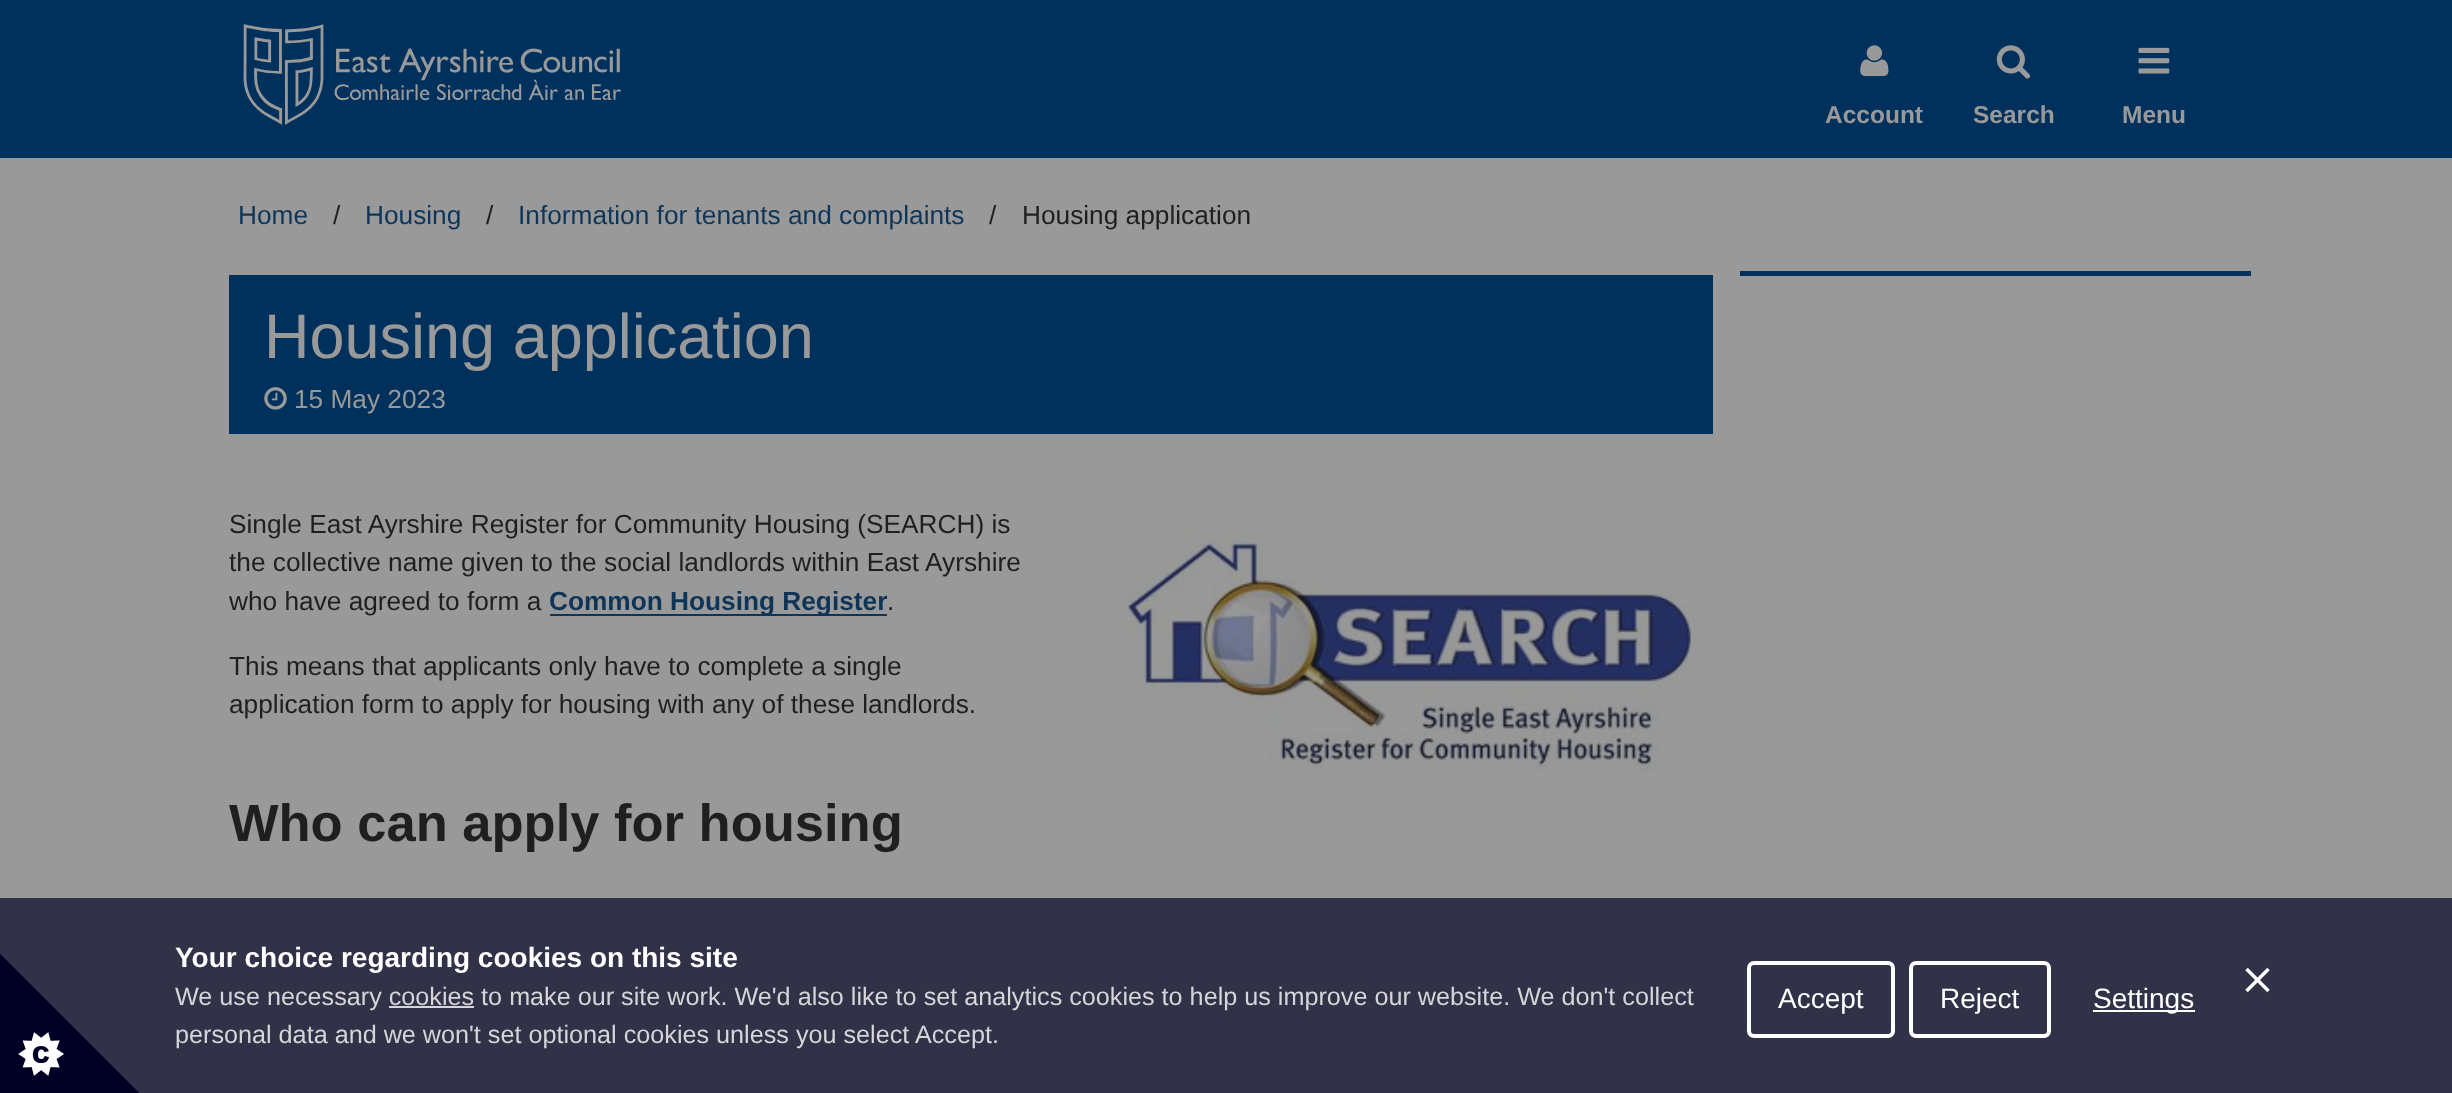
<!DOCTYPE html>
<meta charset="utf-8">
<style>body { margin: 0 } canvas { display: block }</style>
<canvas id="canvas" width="2452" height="1093"></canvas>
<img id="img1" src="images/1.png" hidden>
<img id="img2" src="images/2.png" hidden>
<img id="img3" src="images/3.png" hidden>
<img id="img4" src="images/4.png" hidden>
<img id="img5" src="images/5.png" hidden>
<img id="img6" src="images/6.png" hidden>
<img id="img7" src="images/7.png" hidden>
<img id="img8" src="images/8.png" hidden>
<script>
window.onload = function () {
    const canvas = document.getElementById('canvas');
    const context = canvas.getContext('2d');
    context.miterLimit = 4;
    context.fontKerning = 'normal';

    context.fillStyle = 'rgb(153, 153, 153)';
    context.fillRect(0, 0, 2452, 1093);
    context.fillStyle = 'rgb(0, 49, 93)';
    context.fillRect(0, 0, 2452, 158);
    context.drawImage(document.getElementById('img1'), 243, 24, 378, 101);
    context.drawImage(document.getElementById('img2'), 1860, 45, 29, 32);
    context.drawImage(document.getElementById('img3'), 1996, 45, 34, 34);
    context.drawImage(document.getElementById('img4'), 2138, 47, 32, 27);
    context.fillRect(1740, 271, 511, 5);
    context.fillRect(229, 275, 1484, 159);
    context.drawImage(document.getElementById('img5'), 264, 387, 23, 23);
    context.drawImage(document.getElementById('img6'), 1128, 521, 574, 253);
    context.fillStyle = 'rgb(14, 53, 88)';
    context.fillRect(550, 614, 337, 2);
    context.fillStyle = 'rgb(49, 49, 71)';
    context.fillRect(0, 898, 2452, 195);
    context.drawImage(document.getElementById('img7'), 0, 954, 139, 139);
    context.fillStyle = 'rgb(214, 214, 218)';
    context.fillRect(389, 1006, 85, 2);
    context.drawImage(document.getElementById('img8'), 2245, 967, 25, 26);
    context.beginPath();
    context.roundRect(1749, 963, 144, 73, 5);
    context.strokeStyle = 'rgb(255, 255, 255)';
    context.lineWidth = 4;
    context.stroke();
    context.beginPath();
    context.roundRect(1911, 963, 138, 73, 5);
    context.stroke();
    context.fillStyle = 'rgb(255, 255, 255)';
    context.fillRect(2093, 1010, 102, 2);
    context.font = 'bold 24.5px Liberation Sans';
    context.fillStyle = 'rgb(153, 153, 153)';
    context.fillText('Account', 1825, 123);
    context.fillText('Search', 1973, 123);
    context.fillText('Menu', 2122, 123);
    context.font = '26.25px Liberation Sans';
    context.fillStyle = 'rgb(14, 53, 88)';
    context.fillText('Home', 238, 224);
    context.fillStyle = 'rgb(31, 31, 31)';
    context.fillText('/', 333, 224);
    context.fillStyle = 'rgb(14, 53, 88)';
    context.fillText('Housing', 365, 224);
    context.fillStyle = 'rgb(31, 31, 31)';
    context.fillText('/', 486, 224);
    context.fillStyle = 'rgb(14, 53, 88)';
    context.fillText('Information for tenants and complaints', 518, 224);
    context.fillStyle = 'rgb(31, 31, 31)';
    context.fillText('/', 989, 224);
    context.fillText('Housing application', 1022, 224);
    context.font = '63px Liberation Sans';
    context.fillStyle = 'rgb(153, 153, 153)';
    context.fillText('Housing application', 264, 358);
    context.font = '26.25px Liberation Sans';
    context.fillText('15 May 2023', 294, 408);
    context.fillStyle = 'rgb(31, 31, 31)';
    context.fillText('Single East Ayrshire Register for Community Housing (SEARCH) is', 229, 533);
    context.fillText('the collective name given to the social landlords within East Ayrshire', 229, 571);
    context.fillText('who have agreed to form a', 229, 610);
    context.font = 'bold 26.25px Liberation Sans';
    context.fillStyle = 'rgb(14, 53, 88)';
    context.fillText('Common Housing Register', 549, 610);
    context.font = '26.25px Liberation Sans';
    context.fillStyle = 'rgb(31, 31, 31)';
    context.fillText('.', 887, 610);
    context.fillText('This means that applicants only have to complete a single', 229, 675);
    context.fillText('application form to apply for housing with any of these landlords.', 229, 713);
    context.font = 'bold 52.5px Liberation Sans';
    context.fillText('Who can apply for housing', 229, 841);
    context.font = 'bold 28px Liberation Sans';
    context.fillStyle = 'rgb(255, 255, 255)';
    context.fillText('Your choice regarding cookies on this site', 175, 967);
    context.font = '25.2px Liberation Sans';
    context.fillStyle = 'rgb(214, 214, 218)';
    context.fillText('We use necessary cookies to make our site work. We\'d also like to set analytics cookies to help us improve our website. We don\'t collect', 175, 1005);
    context.fillText('personal data and we won\'t set optional cookies unless you select Accept.', 175, 1043);
    context.font = '28px Liberation Sans';
    context.fillStyle = 'rgb(255, 255, 255)';
    context.fillText('Accept', 1778, 1008);
    context.fillText('Reject', 1940, 1008);
    context.fillText('Settings', 2093, 1008);
};
</script>
